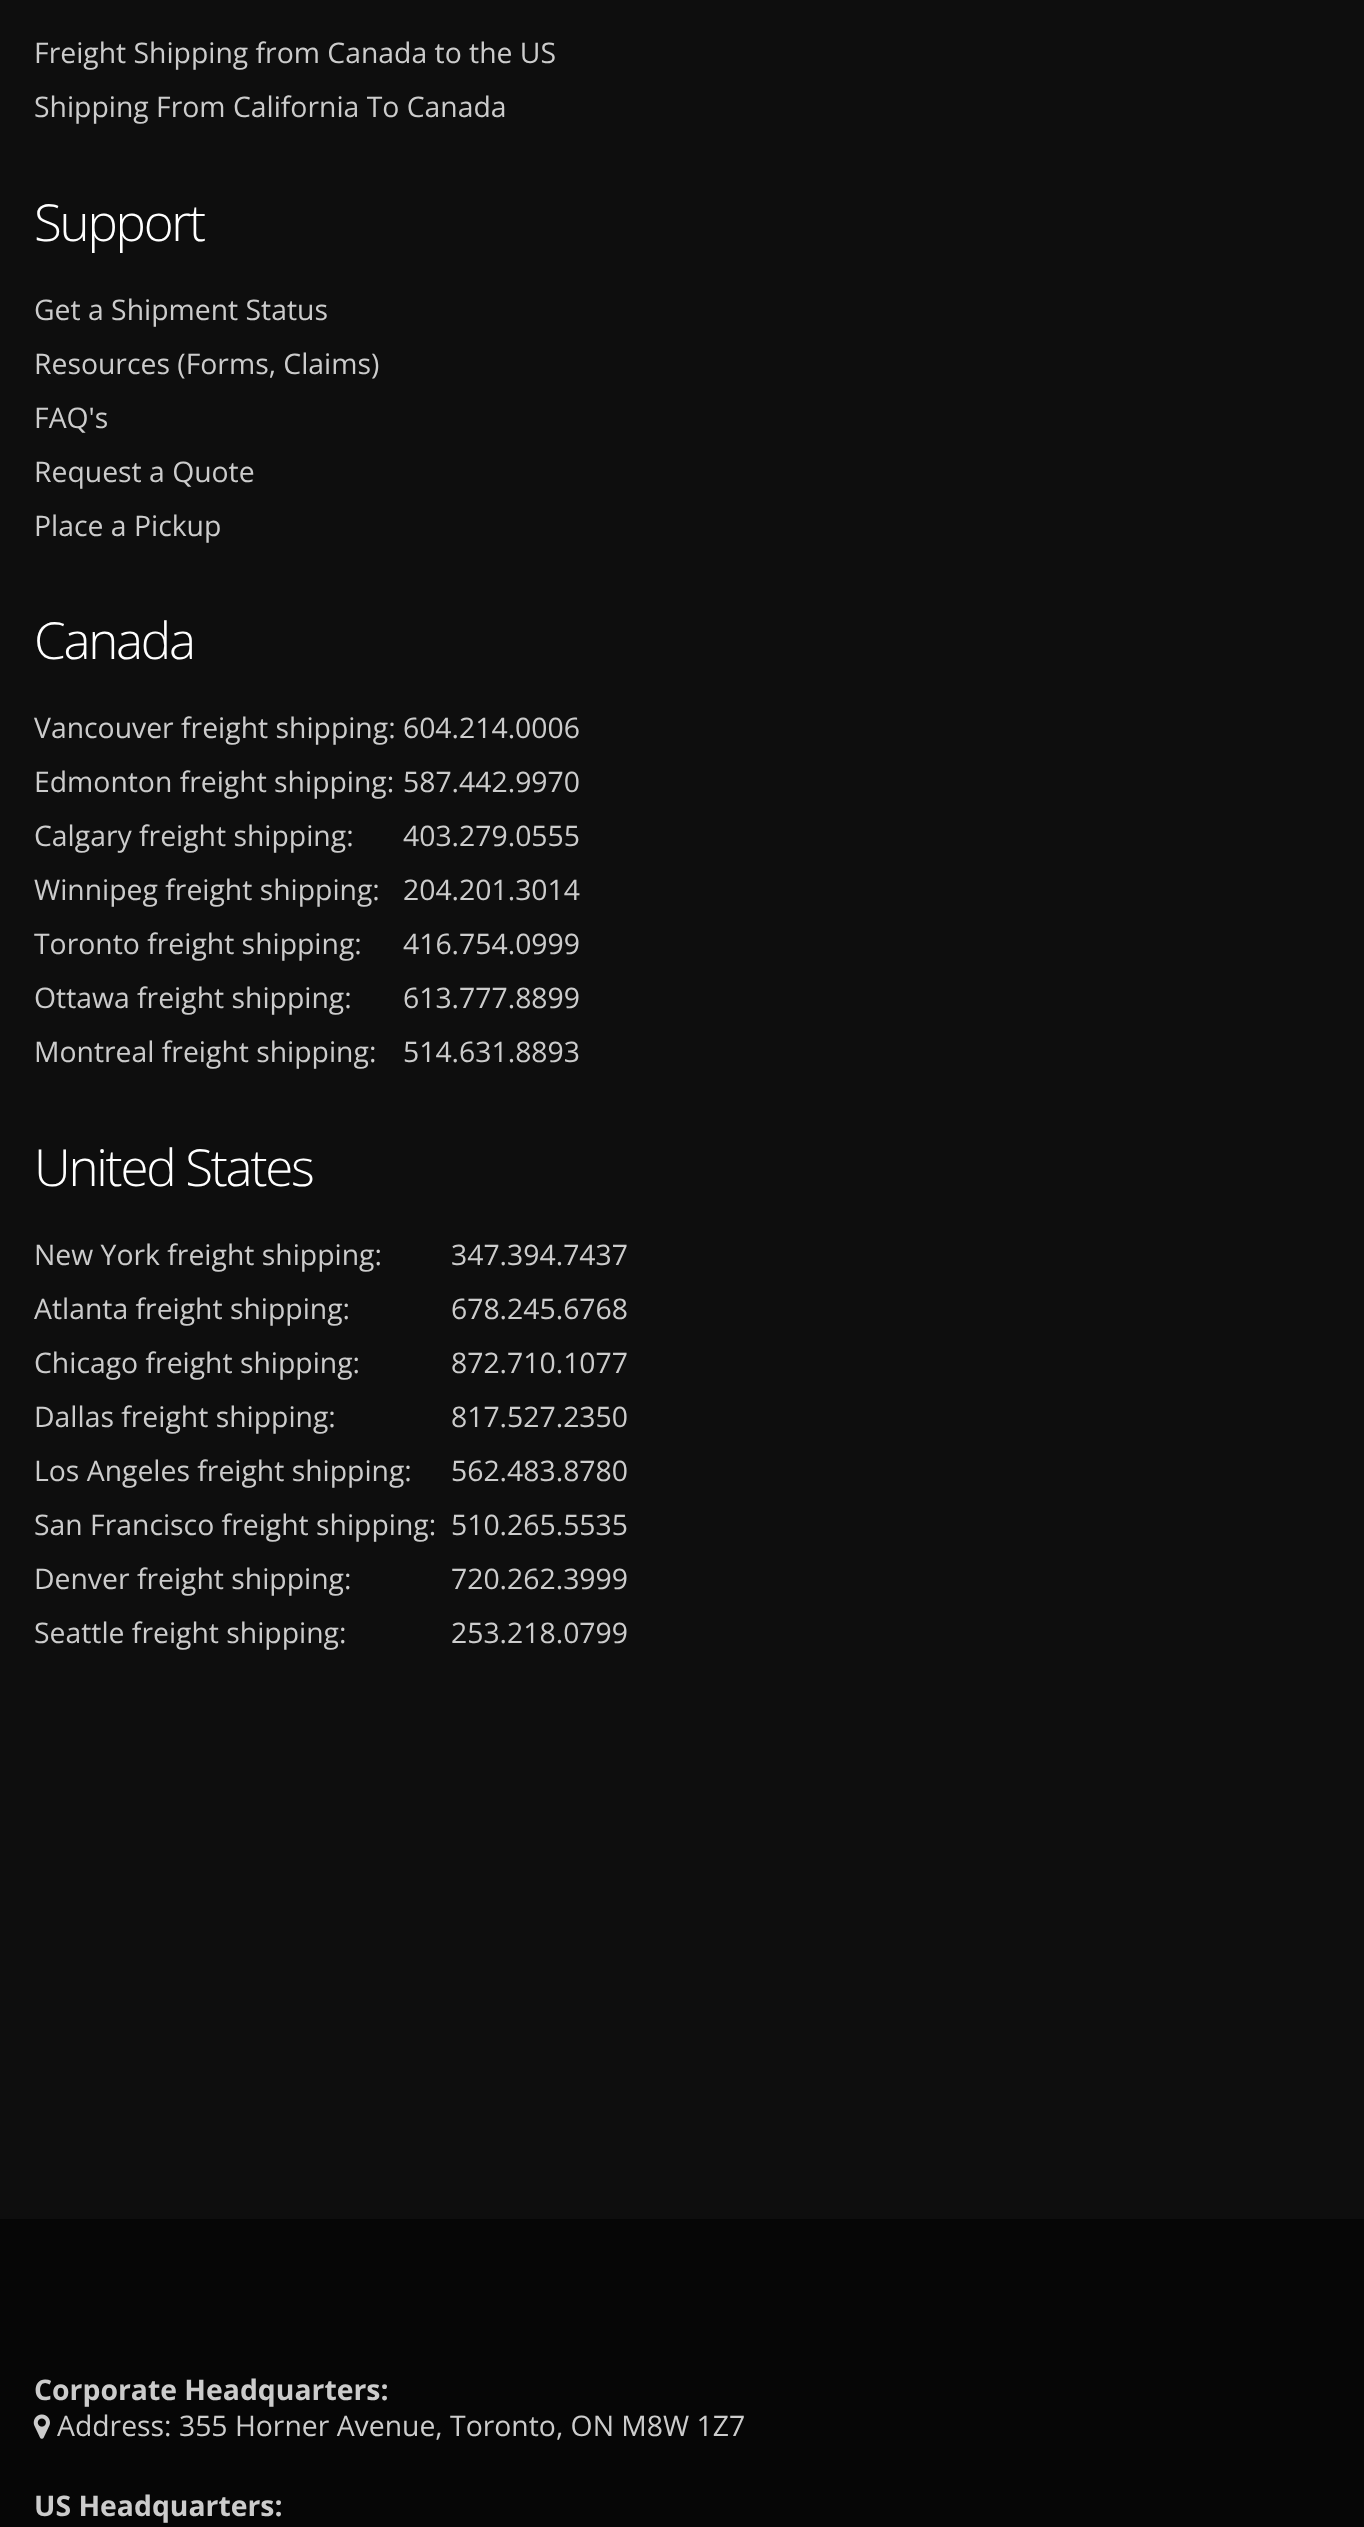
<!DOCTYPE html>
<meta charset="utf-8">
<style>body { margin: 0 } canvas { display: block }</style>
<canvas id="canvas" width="1364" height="2527"></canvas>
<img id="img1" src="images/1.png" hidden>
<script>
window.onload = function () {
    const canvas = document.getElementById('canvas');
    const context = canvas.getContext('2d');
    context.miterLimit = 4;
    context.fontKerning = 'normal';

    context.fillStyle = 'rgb(14, 14, 14)';
    context.fillRect(0, 0, 1364, 2527);
    context.fillStyle = 'rgb(6, 6, 6)';
    context.fillRect(0, 2219, 1364, 308);
    context.drawImage(document.getElementById('img1'), 33, 2414, 17, 25);
    context.font = '28.35px Open Sans';
    context.fillStyle = 'rgb(204, 204, 204)';
    context.fillText('Freight Shipping from Canada to the US', 34, 63);
    context.fillText('Shipping From California To Canada', 34, 117);
    context.letterSpacing = '-2.25px';
    context.font = '300 51px Open Sans';
    context.fillStyle = 'rgb(255, 255, 255)';
    context.fillText('Support', 34, 241);
    context.letterSpacing = '0px';
    context.font = '28.35px Open Sans';
    context.fillStyle = 'rgb(204, 204, 204)';
    context.fillText('Get a Shipment Status', 34, 320);
    context.fillText('Resources (Forms, Claims)', 34, 374);
    context.fillText('FAQ\'s', 34, 428);
    context.fillText('Request a Quote', 34, 482);
    context.fillText('Place a Pickup', 34, 536);
    context.letterSpacing = '-2.25px';
    context.font = '300 51px Open Sans';
    context.fillStyle = 'rgb(255, 255, 255)';
    context.fillText('Canada', 34, 659);
    context.letterSpacing = '0px';
    context.font = '28.35px Open Sans';
    context.fillStyle = 'rgb(204, 204, 204)';
    context.fillText('Vancouver freight shipping: 604.214.0006', 34, 738);
    context.fillText('Edmonton freight shipping:', 34, 792);
    context.fillText('587.442.9970', 403, 792);
    context.fillText('Calgary freight shipping:', 34, 846);
    context.fillText('403.279.0555', 403, 846);
    context.fillText('Winnipeg freight shipping:', 34, 900);
    context.fillText('204.201.3014', 403, 900);
    context.fillText('Toronto freight shipping:', 34, 954);
    context.fillText('416.754.0999', 403, 954);
    context.fillText('Ottawa freight shipping:', 34, 1008);
    context.fillText('613.777.8899', 403, 1008);
    context.fillText('Montreal freight shipping:', 34, 1062);
    context.fillText('514.631.8893', 403, 1062);
    context.letterSpacing = '-2.25px';
    context.font = '300 51px Open Sans';
    context.fillStyle = 'rgb(255, 255, 255)';
    context.fillText('United States', 34, 1186);
    context.letterSpacing = '0px';
    context.font = '28.35px Open Sans';
    context.fillStyle = 'rgb(204, 204, 204)';
    context.fillText('New York freight shipping:', 34, 1265);
    context.fillText('347.394.7437', 451, 1265);
    context.fillText('Atlanta freight shipping:', 34, 1319);
    context.fillText('678.245.6768', 451, 1319);
    context.fillText('Chicago freight shipping:', 34, 1373);
    context.fillText('872.710.1077', 451, 1373);
    context.fillText('Dallas freight shipping:', 34, 1427);
    context.fillText('817.527.2350', 451, 1427);
    context.fillText('Los Angeles freight shipping:', 34, 1481);
    context.fillText('562.483.8780', 451, 1481);
    context.fillText('San Francisco freight shipping:', 34, 1535);
    context.fillText('510.265.5535', 451, 1535);
    context.fillText('Denver freight shipping:', 34, 1589);
    context.fillText('720.262.3999', 451, 1589);
    context.fillText('Seattle freight shipping:', 34, 1643);
    context.fillText('253.218.0799', 451, 1643);
    context.font = 'bold 28.35px Open Sans';
    context.fillText('Corporate Headquarters:', 34, 2400);
    context.font = '28.35px Open Sans';
    context.fillText('Address: 355 Horner Avenue, Toronto, ON M8W 1Z7', 57, 2436);
    context.font = 'bold 28.35px Open Sans';
    context.fillText('US Headquarters:', 34, 2516);
};
</script>
